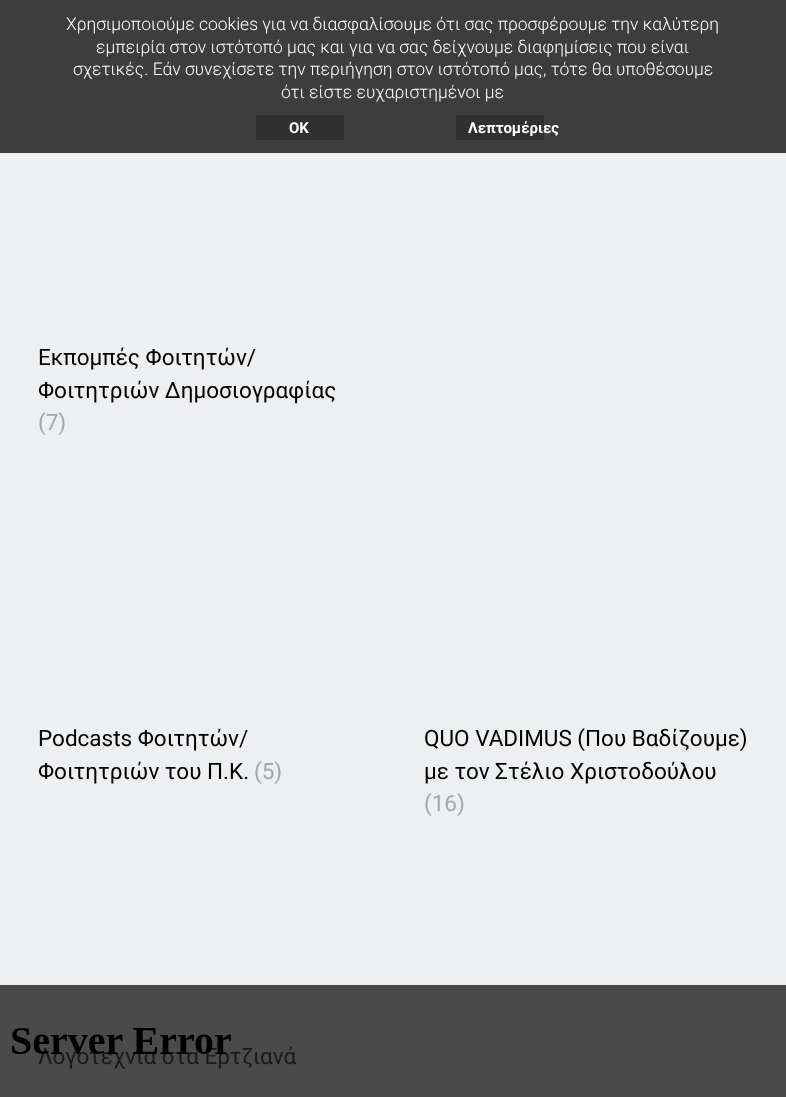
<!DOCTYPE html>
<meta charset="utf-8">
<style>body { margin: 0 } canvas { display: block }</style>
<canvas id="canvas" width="786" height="1097"></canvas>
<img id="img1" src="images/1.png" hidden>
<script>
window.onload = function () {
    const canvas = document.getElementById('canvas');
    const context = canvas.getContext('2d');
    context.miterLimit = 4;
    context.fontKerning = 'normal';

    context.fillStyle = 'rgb(237, 239, 240)';
    context.fillRect(0, 0, 786, 1097);
    context.fillStyle = 'rgb(61, 61, 61)';
    context.fillRect(0, 0, 786, 153);
    context.fillStyle = 'rgb(48, 48, 48)';
    context.fillRect(456, 115, 88, 25);
    context.fillRect(256, 115, 88, 25);
    context.fillStyle = 'rgb(74, 74, 74)';
    context.fillRect(0, 985, 786, 112);
    context.font = '300 17.5px Roboto';
    context.fillStyle = 'rgb(255, 255, 255)';
    context.fillText('Χρησιμοποιούμε cookies για να διασφαλίσουμε ότι σας προσφέρουμε την καλύτερη', 66, 30);
    context.fillText('εμπειρία στον ιστότοπό μας και για να σας δείχνουμε διαφημίσεις που είναι', 96, 53);
    context.fillText('σχετικές. Εάν συνεχίσετε την περιήγηση στον ιστότοπό μας, τότε θα υποθέσουμε', 73, 75);
    context.fillText('ότι είστε ευχαριστημένοι με', 281, 98);
    context.font = 'bold 15px Roboto';
    context.fillText('Λεπτομέριες', 468, 133);
    context.fillText('ΟΚ', 289, 133);
    context.font = '22.5px Roboto';
    context.fillStyle = 'rgb(0, 0, 0)';
    context.fillText('Εκπομπές Φοιτητών/', 38, 365);
    context.fillText('Φοιτητριών Δημοσιογραφίας', 38, 398);
    context.fillStyle = 'rgb(164, 166, 168)';
    context.fillText('(7)', 38, 430);
    context.fillStyle = 'rgb(0, 0, 0)';
    context.fillText('Podcasts Φοιτητών/', 38, 746);
    context.fillText('Φοιτητριών του Π.Κ.', 38, 779);
    context.fillStyle = 'rgb(164, 166, 168)';
    context.fillText('(5)', 254, 779);
    context.fillStyle = 'rgb(0, 0, 0)';
    context.fillText('QUO VADIMUS (Που Βαδίζουμε)', 424, 746);
    context.fillText('με τον Στέλιο Χριστοδούλου', 424, 779);
    context.fillStyle = 'rgb(164, 166, 168)';
    context.fillText('(16)', 424, 811);
    context.fillStyle = 'rgb(26, 26, 26)';
    context.fillText('Λογοτεχνία στα Ερτζιανά', 38, 1064);
    context.drawImage(document.getElementById('img1'), 12, 1028, 219, 26);
};
</script>
